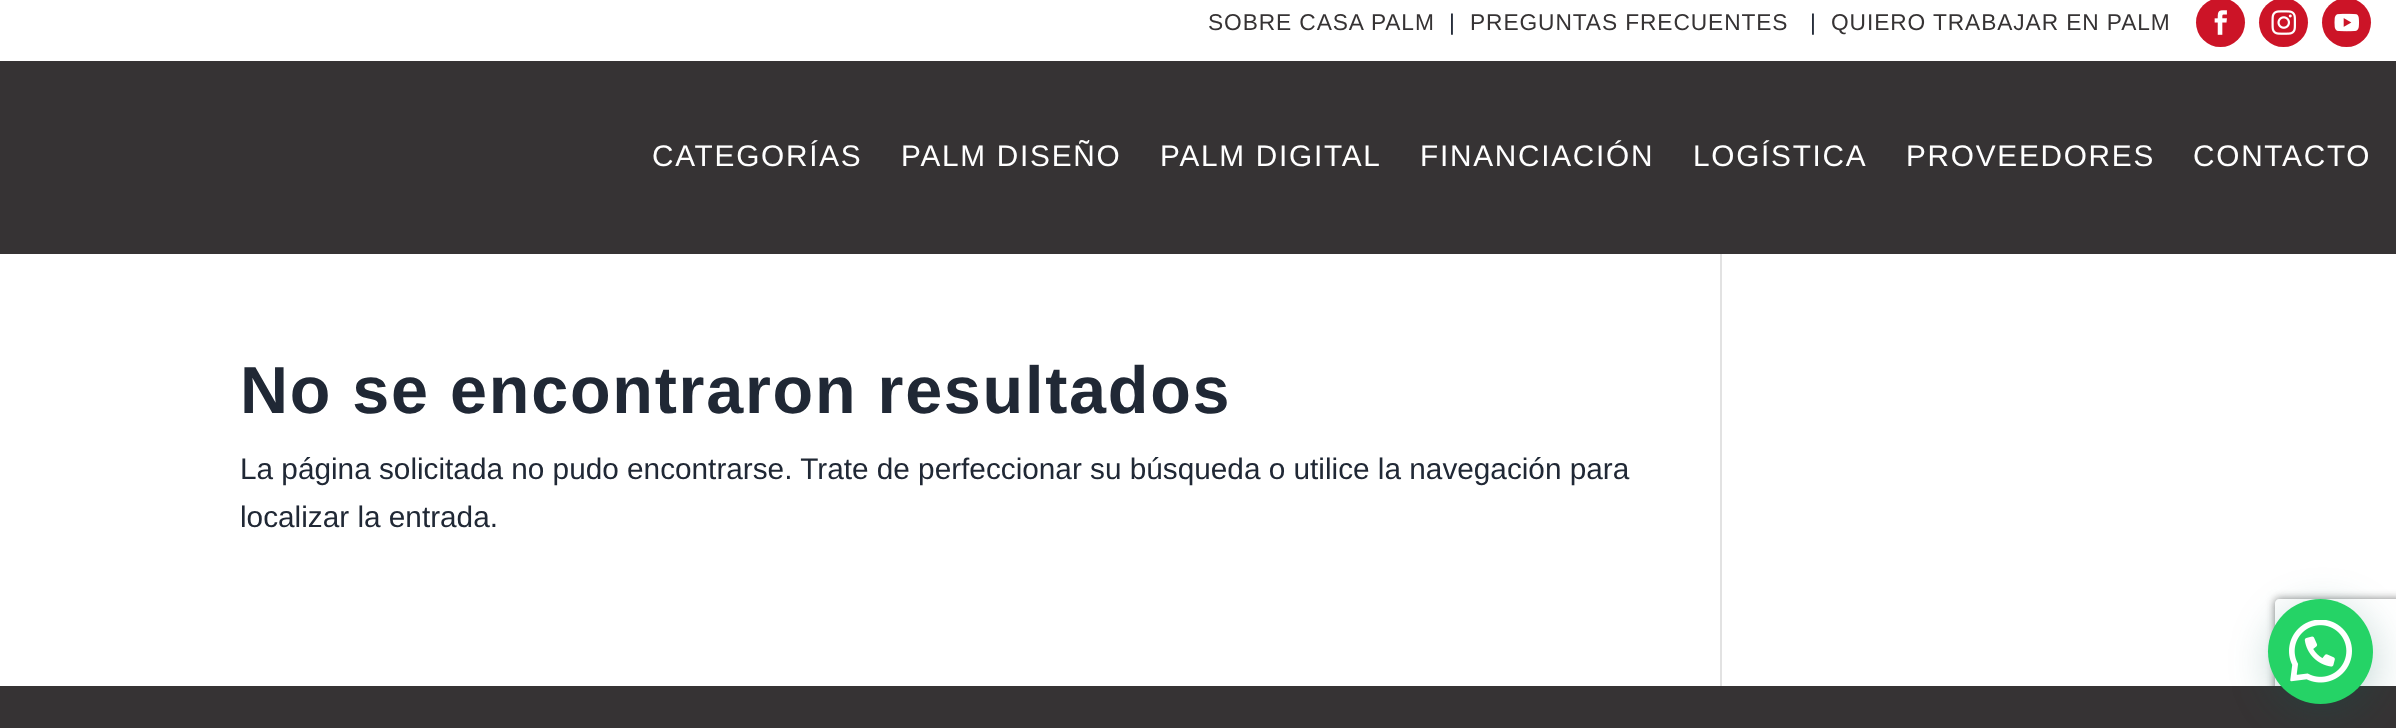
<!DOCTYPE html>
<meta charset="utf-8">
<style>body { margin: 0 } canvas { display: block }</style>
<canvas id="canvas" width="2396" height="728"></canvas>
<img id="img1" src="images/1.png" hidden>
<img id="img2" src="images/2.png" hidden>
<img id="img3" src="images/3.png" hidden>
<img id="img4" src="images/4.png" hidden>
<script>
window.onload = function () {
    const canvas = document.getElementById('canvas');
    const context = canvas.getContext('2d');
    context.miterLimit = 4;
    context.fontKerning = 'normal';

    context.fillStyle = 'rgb(255, 255, 255)';
    context.fillRect(0, 0, 2396, 728);
    context.fillStyle = 'rgb(204, 20, 39)';
    context.beginPath();
    context.arc(2220.5, 22.5, 24.5, 0, 2 * Math.PI);
    context.fill();
    context.drawImage(document.getElementById('img1'), 2214, 10, 13, 25);
    context.beginPath();
    context.arc(2283.5, 22.5, 24.5, 0, 2 * Math.PI);
    context.fill();
    context.drawImage(document.getElementById('img2'), 2271, 10, 25, 25);
    context.beginPath();
    context.arc(2346.5, 22.5, 24.5, 0, 2 * Math.PI);
    context.fill();
    context.drawImage(document.getElementById('img3'), 2334, 13, 25, 19);
    context.fillStyle = 'rgb(54, 51, 52)';
    context.fillRect(0, 61, 2396, 193);
    context.fillStyle = 'rgb(226, 226, 226)';
    context.fillRect(1720, 254, 2, 432);
    context.save();
    context.beginPath();
    context.moveTo(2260, 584);
    context.lineTo(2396, 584);
    context.lineTo(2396, 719);
    context.lineTo(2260, 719);
    context.closePath();
    context.moveTo(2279, 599);
    context.lineTo(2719, 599);
    context.bezierCurveTo(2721, 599, 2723, 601, 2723, 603);
    context.lineTo(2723, 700);
    context.bezierCurveTo(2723, 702, 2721, 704, 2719, 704);
    context.lineTo(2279, 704);
    context.bezierCurveTo(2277, 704, 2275, 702, 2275, 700);
    context.lineTo(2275, 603);
    context.bezierCurveTo(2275, 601, 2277, 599, 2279, 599);
    context.closePath();
    context.clip('evenodd');
    context.fillStyle = 'rgb(128, 128, 128)';
    context.filter = 'blur(4.5px)';
    context.beginPath();
    context.roundRect(2275, 599, 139, 105, 4);
    context.fill();
    context.filter = 'none';
    context.restore();
    context.fillStyle = 'rgb(54, 51, 52)';
    context.fillRect(0, 686, 2396, 42);
    context.fillStyle = 'rgba(7, 94, 84, 0.24)';
    context.filter = 'blur(21px)';
    context.beginPath();
    context.roundRect(2270, 609, 105, 105, 52.5);
    context.fill();
    context.filter = 'none';
    context.fillStyle = 'rgb(37, 211, 102)';
    context.beginPath();
    context.arc(2320.5, 651.5, 52.5, 0, 2 * Math.PI);
    context.fill();
    context.drawImage(document.getElementById('img4'), 2289, 620, 63, 63);
    context.letterSpacing = '0.9px';
    context.font = '22.75px Liberation Sans';
    context.fillStyle = 'rgb(54, 51, 52)';
    context.fillText('SOBRE CASA PALM', 1208, 30);
    context.fillStyle = 'rgb(32, 40, 53)';
    context.fillText('|', 1449, 30);
    context.fillStyle = 'rgb(54, 51, 52)';
    context.fillText('PREGUNTAS FRECUENTES', 1470, 30);
    context.fillStyle = 'rgb(32, 40, 53)';
    context.fillText('|', 1810, 30);
    context.fillStyle = 'rgb(54, 51, 52)';
    context.fillText('QUIERO TRABAJAR EN PALM', 1831, 30);
    context.letterSpacing = '1.75px';
    context.font = '29.75px Liberation Sans';
    context.fillStyle = 'rgb(255, 255, 255)';
    context.fillText('CATEGORÍAS', 652, 166);
    context.fillText('PALM DISEÑO', 901, 166);
    context.fillText('PALM DIGITAL', 1160, 166);
    context.fillText('FINANCIACIÓN', 1420, 166);
    context.fillText('LOGÍSTICA', 1693, 166);
    context.fillText('PROVEEDORES', 1906, 166);
    context.fillText('CONTACTO', 2193, 166);
    context.font = 'bold 66.5px Liberation Sans';
    context.fillStyle = 'rgb(32, 40, 53)';
    context.fillText('No se encontraron resultados', 240, 413);
    context.letterSpacing = '0px';
    context.font = '29.75px Liberation Sans';
    context.fillText('La página solicitada no pudo encontrarse. Trate de perfeccionar su búsqueda o utilice la navegación para', 240, 479);
    context.fillText('localizar la entrada.', 240, 527);
};
</script>
